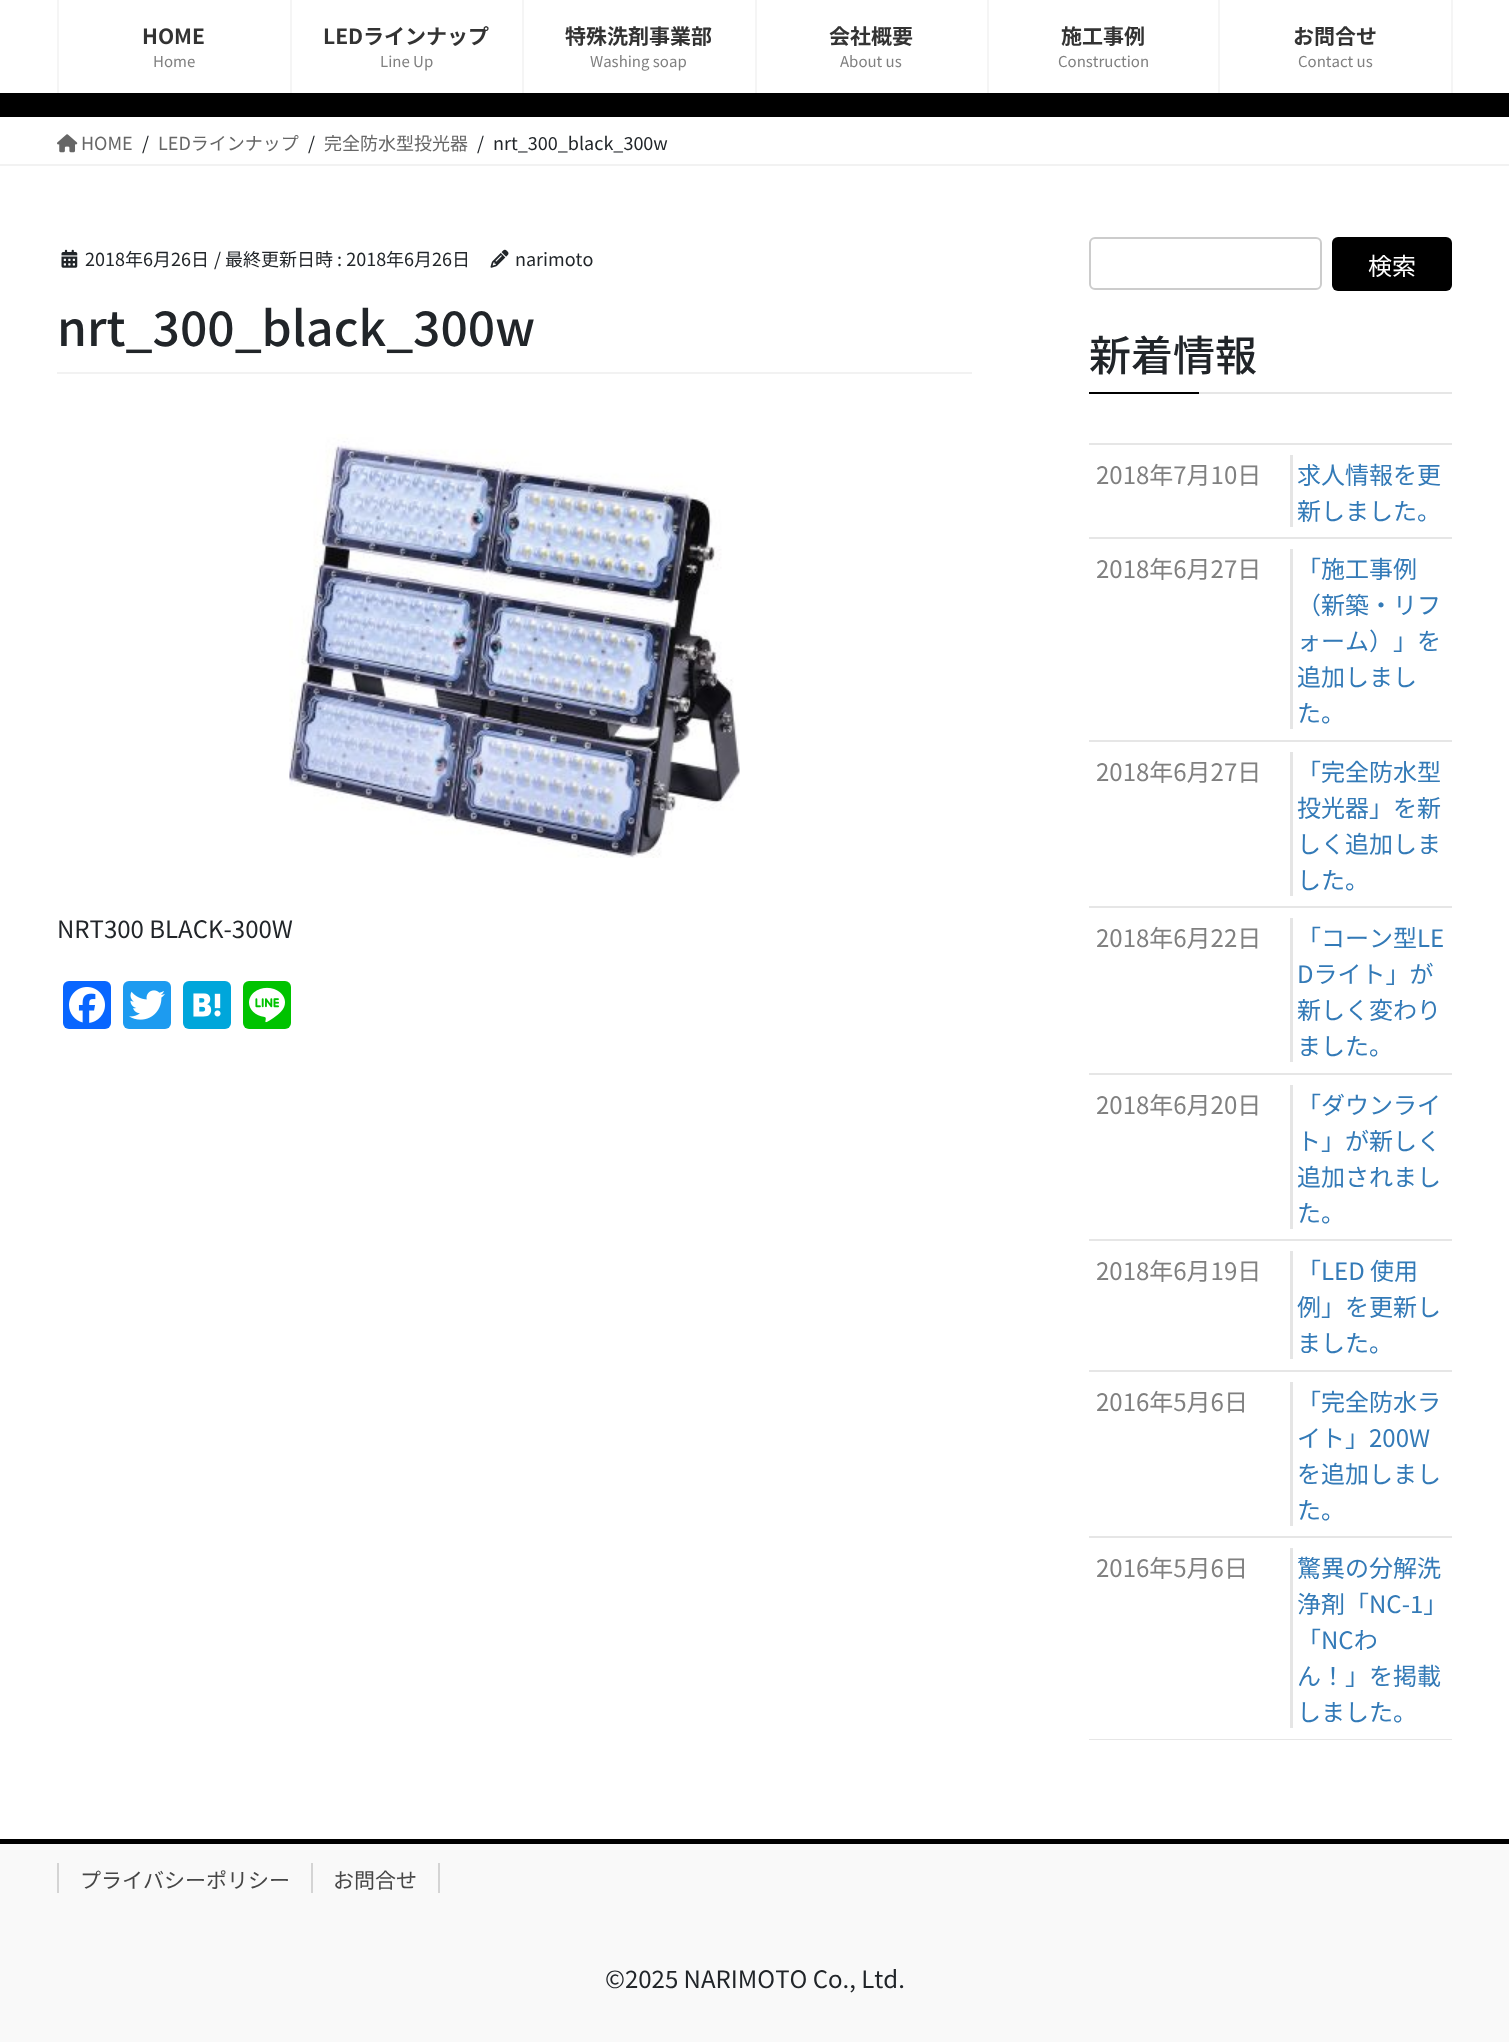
<!DOCTYPE html>
<meta charset="utf-8">
<style>body { margin: 0 } canvas { display: block }</style>
<canvas id="canvas" width="1509" height="2042"></canvas>
<img id="img1" src="images/1.png" hidden>
<img id="img2" src="images/2.png" hidden>
<img id="img3" src="images/3.png" hidden>
<img id="img4" src="images/4.png" hidden>
<img id="img5" src="images/5.png" hidden>
<img id="img6" src="images/6.png" hidden>
<img id="img7" src="images/7.png" hidden>
<img id="img8" src="images/8.png" hidden>
<script>
window.onload = function () {
    const canvas = document.getElementById('canvas');
    const context = canvas.getContext('2d');
    context.miterLimit = 4;
    context.fontKerning = 'none';

    context.fillStyle = 'rgb(255, 255, 255)';
    context.fillRect(0, 0, 1509, 2042);
    context.fillStyle = 'rgb(245, 245, 245)';
    context.fillRect(57, 0, 2, 93);
    context.fillRect(290, 0, 2, 93);
    context.fillRect(522, 0, 2, 93);
    context.fillRect(755, 0, 2, 93);
    context.fillRect(987, 0, 2, 93);
    context.fillRect(1451, 0, 2, 93);
    context.fillRect(1218, 0, 2, 93);
    context.fillStyle = 'rgb(0, 0, 0)';
    context.fillRect(0, 93, 1509, 24);
    context.fillStyle = 'rgb(242, 242, 242)';
    context.fillRect(0, 164, 1509, 2);
    context.drawImage(document.getElementById('img1'), 57, 134, 21, 19);
    context.fillRect(57, 372, 915, 2);
    context.drawImage(document.getElementById('img2'), 61, 249, 17, 19);
    context.drawImage(document.getElementById('img3'), 490, 249, 19, 19);
    context.drawImage(document.getElementById('img4'), 289, 434, 451, 424);
    context.fillStyle = 'rgb(8, 102, 255)';
    context.beginPath();
    context.roundRect(63, 981, 48, 48, 6);
    context.fill();
    context.drawImage(document.getElementById('img5'), 69, 987, 36, 36);
    context.fillStyle = 'rgb(29, 155, 240)';
    context.beginPath();
    context.roundRect(123, 981, 48, 48, 6);
    context.fill();
    context.drawImage(document.getElementById('img6'), 129, 990, 36, 30);
    context.fillStyle = 'rgb(0, 166, 219)';
    context.beginPath();
    context.roundRect(183, 981, 48, 48, 6);
    context.fill();
    context.drawImage(document.getElementById('img7'), 193, 993, 28, 24);
    context.fillStyle = 'rgb(0, 195, 0)';
    context.beginPath();
    context.roundRect(243, 981, 48, 48, 6);
    context.fill();
    context.drawImage(document.getElementById('img8'), 249, 987, 36, 36);
    context.beginPath();
    context.roundRect(1090, 238, 231, 51, 5);
    context.strokeStyle = 'rgb(204, 204, 204)';
    context.lineWidth = 2;
    context.stroke();
    context.fillStyle = 'rgb(0, 0, 0)';
    context.beginPath();
    context.roundRect(1332, 237, 120, 54, 6);
    context.fill();
    context.fillStyle = 'rgb(230, 230, 230)';
    context.fillRect(1199, 392, 253, 2);
    context.fillStyle = 'rgb(0, 0, 0)';
    context.fillRect(1089, 392, 110, 2);
    context.fillStyle = 'rgb(230, 230, 230)';
    context.fillRect(1089, 443, 363, 2);
    context.fillStyle = 'rgb(229, 229, 229)';
    context.fillRect(1290, 455, 3, 72);
    context.fillStyle = 'rgb(230, 230, 230)';
    context.fillRect(1089, 537, 363, 2);
    context.fillStyle = 'rgb(229, 229, 229)';
    context.fillRect(1290, 549, 3, 180);
    context.fillStyle = 'rgb(230, 230, 230)';
    context.fillRect(1089, 740, 363, 2);
    context.fillStyle = 'rgb(229, 229, 229)';
    context.fillRect(1290, 752, 3, 144);
    context.fillStyle = 'rgb(230, 230, 230)';
    context.fillRect(1089, 906, 363, 2);
    context.fillStyle = 'rgb(229, 229, 229)';
    context.fillRect(1290, 918, 3, 144);
    context.fillStyle = 'rgb(230, 230, 230)';
    context.fillRect(1089, 1073, 363, 2);
    context.fillStyle = 'rgb(229, 229, 229)';
    context.fillRect(1290, 1085, 3, 144);
    context.fillStyle = 'rgb(230, 230, 230)';
    context.fillRect(1089, 1239, 363, 2);
    context.fillStyle = 'rgb(229, 229, 229)';
    context.fillRect(1290, 1251, 3, 108);
    context.fillStyle = 'rgb(230, 230, 230)';
    context.fillRect(1089, 1370, 363, 2);
    context.fillStyle = 'rgb(229, 229, 229)';
    context.fillRect(1290, 1382, 3, 144);
    context.fillStyle = 'rgb(230, 230, 230)';
    context.fillRect(1089, 1536, 363, 2);
    context.fillStyle = 'rgb(229, 229, 229)';
    context.fillRect(1290, 1548, 3, 180);
    context.fillStyle = 'rgb(230, 230, 230)';
    context.fillRect(1089, 1739, 363, 1);
    context.fillStyle = 'rgb(249, 249, 249)';
    context.fillRect(0, 1844, 1509, 198);
    context.fillStyle = 'rgb(0, 0, 0)';
    context.fillRect(0, 1839, 1509, 5);
    context.fillStyle = 'rgb(212, 212, 212)';
    context.fillRect(57, 1863, 2, 30);
    context.fillRect(438, 1863, 2, 30);
    context.fillRect(311, 1863, 2, 30);
    context.font = 'bold 21px Noto Sans JP';
    context.fillStyle = 'rgb(51, 51, 51)';
    context.fillText('HOME', 142, 44);
    context.font = '15px Noto Sans JP';
    context.fillStyle = 'rgb(128, 128, 128)';
    context.fillText('Home', 153, 67);
    context.font = 'bold 21px Noto Sans JP';
    context.fillStyle = 'rgb(51, 51, 51)';
    context.fillText('LEDラインナップ', 323, 44);
    context.font = '15px Noto Sans JP';
    context.fillStyle = 'rgb(128, 128, 128)';
    context.fillText('Line Up', 380, 67);
    context.font = 'bold 21px Noto Sans JP';
    context.fillStyle = 'rgb(51, 51, 51)';
    context.fillText('特殊洗剤事業部', 565, 44);
    context.font = '15px Noto Sans JP';
    context.fillStyle = 'rgb(128, 128, 128)';
    context.fillText('Washing soap', 590, 67);
    context.font = 'bold 21px Noto Sans JP';
    context.fillStyle = 'rgb(51, 51, 51)';
    context.fillText('会社概要', 829, 44);
    context.font = '15px Noto Sans JP';
    context.fillStyle = 'rgb(128, 128, 128)';
    context.fillText('About us', 840, 67);
    context.font = 'bold 21px Noto Sans JP';
    context.fillStyle = 'rgb(51, 51, 51)';
    context.fillText('施工事例', 1061, 44);
    context.font = '15px Noto Sans JP';
    context.fillStyle = 'rgb(128, 128, 128)';
    context.fillText('Construction', 1058, 67);
    context.font = 'bold 21px Noto Sans JP';
    context.fillStyle = 'rgb(51, 51, 51)';
    context.fillText('お問合せ', 1293, 44);
    context.font = '15px Noto Sans JP';
    context.fillStyle = 'rgb(128, 128, 128)';
    context.fillText('Contact us', 1298, 67);
    context.font = '18px Noto Sans JP';
    context.fillStyle = 'rgb(102, 102, 102)';
    context.fillText('HOME', 81, 150);
    context.fillStyle = 'rgb(33, 37, 41)';
    context.fillText('/', 142, 150);
    context.fillStyle = 'rgb(102, 102, 102)';
    context.fillText('LEDラインナップ', 158, 150);
    context.fillStyle = 'rgb(33, 37, 41)';
    context.fillText('/', 308, 150);
    context.fillStyle = 'rgb(102, 102, 102)';
    context.fillText('完全防水型投光器', 324, 150);
    context.fillStyle = 'rgb(33, 37, 41)';
    context.fillText('/', 477, 150);
    context.fillText('nrt_300_black_300w', 493, 150);
    context.fillText('2018年6月26日', 85, 266);
    context.fillText('/ 最終更新日時 : 2018年6月26日', 214, 266);
    context.fillText('narimoto', 515, 266);
    context.font = '500 48px Noto Sans JP';
    context.fillText('nrt_300_black_300w', 57, 346);
    context.font = '24px Noto Sans JP';
    context.fillText('NRT300 BLACK-300W', 57, 938);
    context.fillStyle = 'rgb(255, 255, 255)';
    context.fillText('検索', 1368, 275);
    context.font = '500 42px Noto Sans JP';
    context.fillStyle = 'rgb(33, 37, 41)';
    context.fillText('新着情報', 1089, 371);
    context.font = '24px Noto Sans JP';
    context.fillStyle = 'rgb(128, 128, 128)';
    context.fillText('2018年7月10日', 1096, 484);
    context.fillStyle = 'rgb(51, 122, 183)';
    context.fillText('求人情報を更', 1297, 484);
    context.fillText('新しました。', 1297, 520);
    context.fillStyle = 'rgb(128, 128, 128)';
    context.fillText('2018年6月27日', 1096, 578);
    context.fillStyle = 'rgb(51, 122, 183)';
    context.fillText('「施工事例', 1297, 578);
    context.fillText('（新築・リフ', 1297, 614);
    context.fillText('ォーム）', 1297, 650);
    context.fillText('」を', 1393, 650);
    context.fillText('追加しまし', 1297, 686);
    context.fillText('た。', 1297, 722);
    context.fillStyle = 'rgb(128, 128, 128)';
    context.fillText('2018年6月27日', 1096, 781);
    context.fillStyle = 'rgb(51, 122, 183)';
    context.fillText('「完全防水型', 1297, 781);
    context.fillText('投光器」を新', 1297, 817);
    context.fillText('しく追加しま', 1297, 853);
    context.fillText('した。', 1297, 889);
    context.fillStyle = 'rgb(128, 128, 128)';
    context.fillText('2018年6月22日', 1096, 947);
    context.fillStyle = 'rgb(51, 122, 183)';
    context.fillText('「コーン型LE', 1297, 947);
    context.fillText('Dライト」が', 1297, 983);
    context.fillText('新しく変わり', 1297, 1019);
    context.fillText('ました。', 1297, 1055);
    context.fillStyle = 'rgb(128, 128, 128)';
    context.fillText('2018年6月20日', 1096, 1114);
    context.fillStyle = 'rgb(51, 122, 183)';
    context.fillText('「ダウンライ', 1297, 1114);
    context.fillText('ト」が新しく', 1297, 1150);
    context.fillText('追加されまし', 1297, 1186);
    context.fillText('た。', 1297, 1222);
    context.fillStyle = 'rgb(128, 128, 128)';
    context.fillText('2018年6月19日', 1096, 1280);
    context.fillStyle = 'rgb(51, 122, 183)';
    context.fillText('「LED 使用', 1297, 1280);
    context.fillText('例」を更新し', 1297, 1316);
    context.fillText('ました。', 1297, 1352);
    context.fillStyle = 'rgb(128, 128, 128)';
    context.fillText('2016年5月6日', 1096, 1411);
    context.fillStyle = 'rgb(51, 122, 183)';
    context.fillText('「完全防水ラ', 1297, 1411);
    context.fillText('イト」200W', 1297, 1447);
    context.fillText('を追加しまし', 1297, 1483);
    context.fillText('た。', 1297, 1519);
    context.fillStyle = 'rgb(128, 128, 128)';
    context.fillText('2016年5月6日', 1096, 1577);
    context.fillStyle = 'rgb(51, 122, 183)';
    context.fillText('驚異の分解洗', 1297, 1577);
    context.fillText('浄剤「NC-1」', 1297, 1613);
    context.fillText('「NCわ', 1297, 1649);
    context.fillText('ん！」を掲載', 1297, 1685);
    context.fillText('しました。', 1297, 1721);
    context.font = '21px Noto Sans JP';
    context.fillStyle = 'rgb(70, 70, 70)';
    context.fillText('プライバシーポリシー', 80, 1888);
    context.fillText('お問合せ', 333, 1888);
    context.font = '24px Noto Sans JP';
    context.fillStyle = 'rgb(33, 37, 41)';
    context.fillText('©2025 NARIMOTO Co., Ltd.', 605, 1988);
};
</script>
